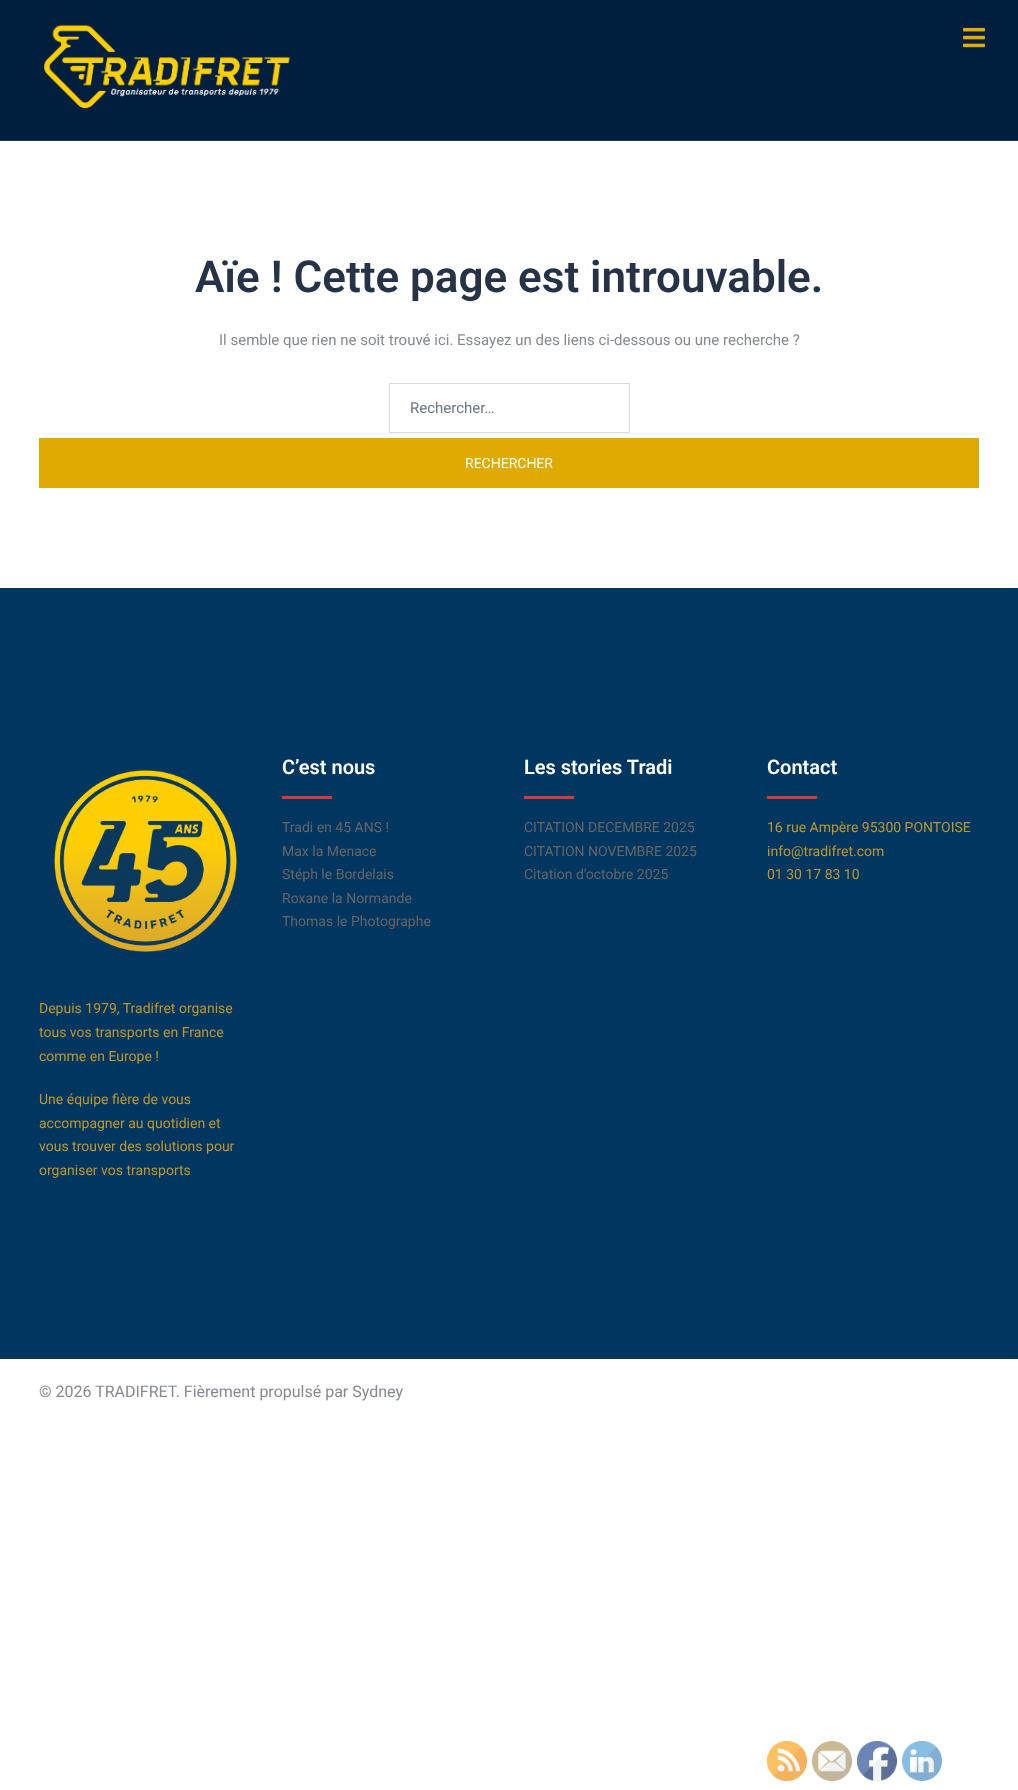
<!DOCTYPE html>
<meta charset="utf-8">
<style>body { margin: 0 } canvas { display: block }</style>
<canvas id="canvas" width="1018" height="1790"></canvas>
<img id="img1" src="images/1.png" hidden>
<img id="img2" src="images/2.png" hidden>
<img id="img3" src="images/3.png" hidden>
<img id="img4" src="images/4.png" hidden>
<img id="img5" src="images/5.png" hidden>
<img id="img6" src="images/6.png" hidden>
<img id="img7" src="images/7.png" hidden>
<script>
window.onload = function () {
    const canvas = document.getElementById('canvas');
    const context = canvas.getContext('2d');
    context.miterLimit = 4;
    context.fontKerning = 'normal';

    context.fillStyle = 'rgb(255, 255, 255)';
    context.fillRect(0, 0, 1018, 1790);
    context.fillStyle = 'rgb(0, 31, 62)';
    context.fillRect(0, 0, 1018, 140);
    context.fillStyle = 'rgb(26, 53, 81)';
    context.fillRect(0, 140, 1018, 1);
    context.drawImage(document.getElementById('img1'), 43, 24, 247, 85);
    context.drawImage(document.getElementById('img2'), 963, 27, 22, 21);
    context.strokeStyle = 'rgb(219, 219, 219)';
    context.strokeRect(389.5, 383.5, 240, 49);
    context.fillStyle = 'rgb(223, 171, 0)';
    context.fillRect(39, 438, 940, 50);
    context.fillStyle = 'rgb(0, 54, 95)';
    context.fillRect(0, 588, 1018, 771);
    context.fillStyle = 'rgb(216, 58, 58)';
    context.fillRect(282, 796, 50, 3);
    context.fillRect(524, 796, 50, 3);
    context.fillRect(767, 796, 50, 3);
    context.drawImage(document.getElementById('img3'), 54, 770, 183, 182);
    context.drawImage(document.getElementById('img4'), 767, 1741, 40, 40);
    context.drawImage(document.getElementById('img5'), 812, 1741, 40, 40);
    context.drawImage(document.getElementById('img6'), 857, 1741, 40, 40);
    context.drawImage(document.getElementById('img7'), 902, 1741, 40, 40);
    context.font = '600 44px Roboto';
    context.fillStyle = 'rgb(38, 50, 70)';
    context.fillText('Aïe ! Cette page est introuvable.', 195, 292);
    context.font = '15px Roboto';
    context.fillStyle = 'rgb(134, 137, 144)';
    context.fillText('Il semble que rien ne soit trouvé ici. Essayez un des liens ci-dessous ou une recherche ?', 219, 345);
    context.fillStyle = 'rgb(109, 118, 133)';
    context.fillText('Rechercher…', 410, 413);
    context.font = '14px Roboto';
    context.fillStyle = 'rgb(255, 255, 255)';
    context.fillText('RECHERCHER', 465, 468);
    context.font = '600 20px Roboto';
    context.fillText('C’est nous', 282, 774);
    context.font = '14px Roboto';
    context.fillStyle = 'rgb(102, 102, 102)';
    context.fillText('Tradi en 45 ANS !', 282, 832);
    context.fillText('Max la Menace', 282, 856);
    context.fillText('Stéph le Bordelais', 282, 879);
    context.fillText('Roxane la Normande', 282, 903);
    context.fillText('Thomas le Photographe', 282, 926);
    context.font = '600 20px Roboto';
    context.fillStyle = 'rgb(255, 255, 255)';
    context.fillText('Les stories Tradi', 524, 774);
    context.font = '14px Roboto';
    context.fillStyle = 'rgb(102, 102, 102)';
    context.fillText('CITATION DECEMBRE 2025', 524, 832);
    context.fillText('CITATION NOVEMBRE 2025', 524, 856);
    context.fillText('Citation d’octobre 2025', 524, 879);
    context.font = '600 20px Roboto';
    context.fillStyle = 'rgb(255, 255, 255)';
    context.fillText('Contact', 767, 774);
    context.font = '14px Roboto';
    context.fillStyle = 'rgb(190, 152, 46)';
    context.fillText('16 rue Ampère 95300 PONTOISE', 767, 832);
    context.fillText('info@tradifret.com', 767, 856);
    context.fillText('01 30 17 83 10', 767, 879);
    context.fillText('Depuis 1979, Tradifret organise', 39, 1013);
    context.fillText('tous vos transports en France', 39, 1037);
    context.fillText('comme en Europe !', 39, 1061);
    context.fillText('Une équipe fière de vous', 39, 1104);
    context.fillText('accompagner au quotidien et', 39, 1128);
    context.fillText('vous trouver des solutions pour', 39, 1151);
    context.fillText('organiser vos transports', 39, 1175);
    context.font = '16px Roboto';
    context.fillStyle = 'rgb(134, 137, 144)';
    context.fillText('© 2026 TRADIFRET. Fièrement propulsé par Sydney', 39, 1397);
};
</script>
